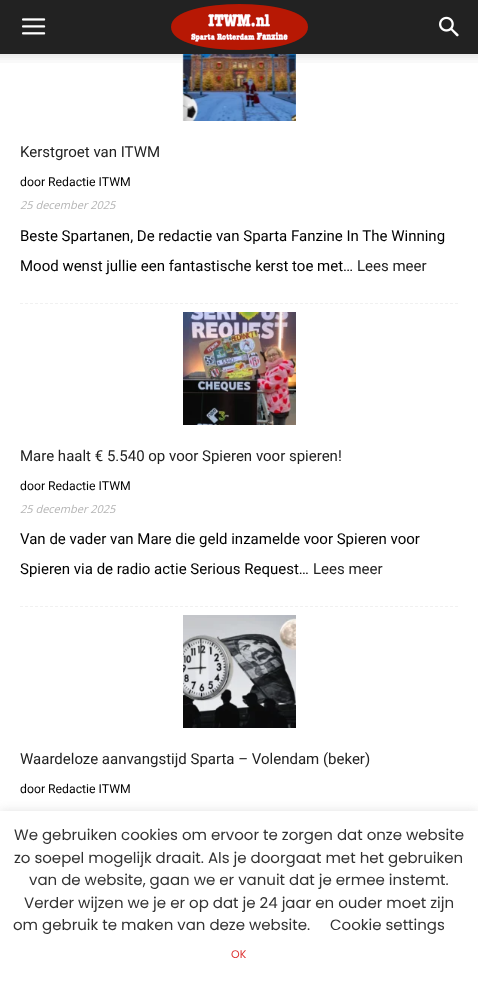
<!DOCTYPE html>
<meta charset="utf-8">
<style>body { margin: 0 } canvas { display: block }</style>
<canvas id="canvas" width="478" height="986"></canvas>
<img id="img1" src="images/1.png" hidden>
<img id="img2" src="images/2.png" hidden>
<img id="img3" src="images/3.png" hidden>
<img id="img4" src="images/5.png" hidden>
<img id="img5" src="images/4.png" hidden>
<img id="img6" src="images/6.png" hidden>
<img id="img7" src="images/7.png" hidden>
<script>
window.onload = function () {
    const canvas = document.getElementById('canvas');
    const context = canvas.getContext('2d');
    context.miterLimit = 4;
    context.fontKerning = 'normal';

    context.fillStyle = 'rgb(255, 255, 255)';
    context.fillRect(0, 0, 478, 986);
    context.fillStyle = 'rgb(34, 34, 34)';
    context.fillRect(0, 0, 478, 54);
    context.drawImage(document.getElementById('img1'), 22, 18, 24, 17);
    context.drawImage(document.getElementById('img2'), 171, 4, 137, 46);
    context.drawImage(document.getElementById('img3'), 439, 16, 20, 21);
    context.drawImage(document.getElementById('img4'), 182, 54, 114, 67);
    context.drawImage(document.getElementById('img5'), 0, 54, 478, 9);
    context.beginPath();
    context.moveTo(20, 303.5);
    context.lineTo(458, 303.5);
    context.strokeStyle = 'rgb(241, 241, 241)';
    context.setLineDash([3, 2]);
    context.stroke();
    context.beginPath();
    context.moveTo(20, 606.5);
    context.lineTo(458, 606.5);
    context.stroke();
    context.drawImage(document.getElementById('img6'), 183, 312, 113, 113);
    context.drawImage(document.getElementById('img7'), 183, 615, 113, 113);
    context.fillStyle = 'rgba(172, 171, 171, 0.3)';
    context.filter = 'blur(5px)';
    context.beginPath();
    context.rect(0, 810, 478, 175);
    context.fill();
    context.filter = 'none';
    context.fillStyle = 'rgb(255, 255, 255)';
    context.fillRect(0, 811, 478, 175);
    context.font = '15px Roboto';
    context.fillStyle = 'rgb(34, 34, 34)';
    context.fillText('Kerstgroet van ITWM', 20, 157);
    context.font = '12.25px Roboto';
    context.fillStyle = 'rgb(0, 0, 0)';
    context.fillText('door Redactie ITWM', 20, 186);
    context.font = 'italic 11px Open Sans';
    context.fillStyle = 'rgb(181, 181, 181)';
    context.fillText('25 december 2025', 20, 209);
    context.font = '15px Roboto';
    context.fillStyle = 'rgb(0, 0, 0)';
    context.fillText('Beste Spartanen, De redactie van Sparta Fanzine In The Winning', 20, 241);
    context.fillText('Mood wenst jullie een fantastische kerst toe met…', 20, 271);
    context.fillStyle = 'rgb(34, 34, 34)';
    context.fillText('Lees meer', 357, 271);
    context.fillText('Mare haalt € 5.540 op voor Spieren voor spieren!', 20, 461);
    context.font = '12.25px Roboto';
    context.fillStyle = 'rgb(0, 0, 0)';
    context.fillText('door Redactie ITWM', 20, 490);
    context.font = 'italic 11px Open Sans';
    context.fillStyle = 'rgb(181, 181, 181)';
    context.fillText('25 december 2025', 20, 513);
    context.font = '15px Roboto';
    context.fillStyle = 'rgb(0, 0, 0)';
    context.fillText('Van de vader van Mare die geld inzamelde voor Spieren voor', 20, 544);
    context.fillText('Spieren via de radio actie Serious Request…', 20, 574);
    context.fillStyle = 'rgb(34, 34, 34)';
    context.fillText('Lees meer', 313, 574);
    context.fillText('Waardeloze aanvangstijd Sparta – Volendam (beker)', 20, 764);
    context.font = '12.25px Roboto';
    context.fillStyle = 'rgb(0, 0, 0)';
    context.fillText('door Redactie ITWM', 20, 793);
    context.font = '15px Poppins';
    context.fillStyle = 'rgb(51, 51, 51)';
    context.fillText('We gebruiken cookies om ervoor te zorgen dat onze website', 14, 840);
    context.fillText('zo soepel mogelijk draait. Als je doorgaat met het gebruiken', 14, 863);
    context.fillText('van de website, gaan we er vanuit dat je ermee instemt.', 29, 885);
    context.fillText('Verder wijzen we je er op dat je 24 jaar en ouder moet zijn', 24, 908);
    context.fillText('om gebruik te maken van deze website.', 13, 930);
    context.fillText('Cookie settings', 330, 930);
    context.font = '11px Poppins';
    context.fillStyle = 'rgb(221, 51, 51)';
    context.fillText('OK', 231, 958);
};
</script>
